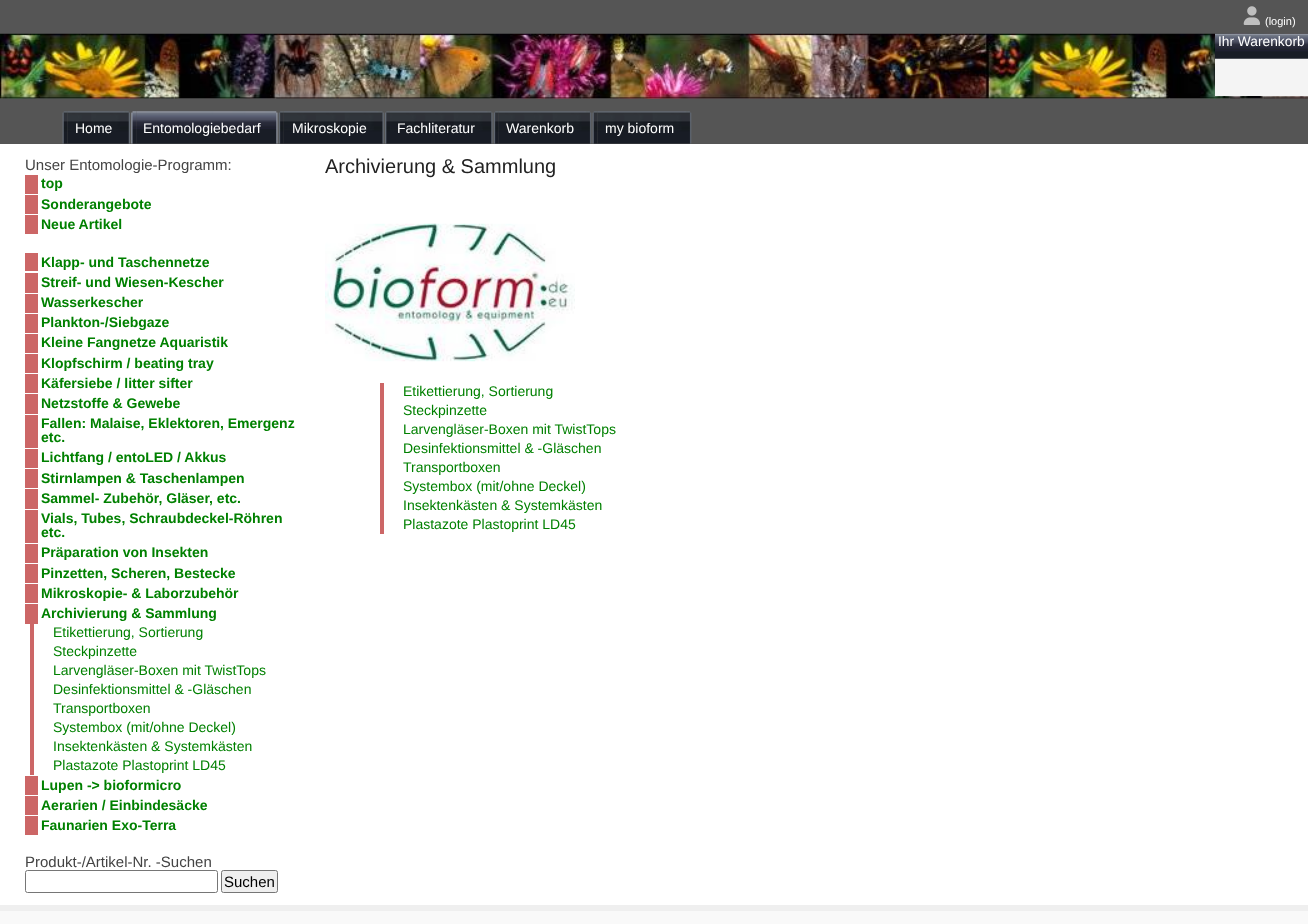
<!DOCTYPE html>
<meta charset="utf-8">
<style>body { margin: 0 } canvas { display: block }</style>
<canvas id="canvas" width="1308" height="924"></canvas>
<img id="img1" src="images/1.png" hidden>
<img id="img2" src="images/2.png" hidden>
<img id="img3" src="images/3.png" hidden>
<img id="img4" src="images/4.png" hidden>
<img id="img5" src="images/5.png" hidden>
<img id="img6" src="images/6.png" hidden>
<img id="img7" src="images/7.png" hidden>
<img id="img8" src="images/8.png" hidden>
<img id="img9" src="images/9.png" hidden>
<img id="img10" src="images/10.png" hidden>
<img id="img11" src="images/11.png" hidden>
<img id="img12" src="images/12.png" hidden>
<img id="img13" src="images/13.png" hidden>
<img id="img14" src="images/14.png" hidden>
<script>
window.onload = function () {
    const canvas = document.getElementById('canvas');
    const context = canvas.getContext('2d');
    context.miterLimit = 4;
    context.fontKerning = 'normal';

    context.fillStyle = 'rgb(255, 255, 255)';
    context.fillRect(0, 0, 1308, 924);
    context.fillStyle = 'rgb(85, 85, 85)';
    context.fillRect(0, 0, 1308, 34);
    context.drawImage(document.getElementById('img1'), 1243, 6, 17, 19);
    context.drawImage(document.getElementById('img2'), 0, 33, 1308, 66);
    context.fillStyle = 'rgb(244, 244, 244)';
    context.fillRect(1215, 58, 93, 38);
    context.drawImage(document.getElementById('img3'), 1215, 33, 93, 26);
    context.fillStyle = 'rgb(85, 85, 85)';
    context.fillRect(0, 99, 1308, 45);
    context.drawImage(document.getElementById('img4'), 62, 111, 6, 33);
    context.drawImage(document.getElementById('img5'), 67, 111, 63, 33);
    context.drawImage(document.getElementById('img6'), 131, 111, 6, 33);
    context.drawImage(document.getElementById('img7'), 136, 111, 142, 33);
    context.drawImage(document.getElementById('img8'), 278, 111, 6, 33);
    context.drawImage(document.getElementById('img9'), 283, 111, 101, 33);
    context.drawImage(document.getElementById('img10'), 385, 111, 5, 33);
    context.drawImage(document.getElementById('img11'), 390, 111, 103, 33);
    context.drawImage(document.getElementById('img8'), 493, 111, 6, 33);
    context.drawImage(document.getElementById('img12'), 498, 111, 94, 33);
    context.drawImage(document.getElementById('img4'), 592, 111, 6, 33);
    context.drawImage(document.getElementById('img13'), 597, 111, 95, 33);
    context.fillStyle = 'rgb(204, 102, 102)';
    context.fillRect(25, 175, 13, 19);
    context.fillRect(25, 195, 13, 19);
    context.fillRect(25, 215, 13, 19);
    context.fillRect(25, 253, 13, 18);
    context.fillRect(25, 273, 13, 20);
    context.fillRect(25, 294, 13, 19);
    context.fillRect(25, 314, 13, 19);
    context.fillRect(25, 334, 13, 19);
    context.fillRect(25, 354, 13, 19);
    context.fillRect(25, 374, 13, 19);
    context.fillRect(25, 394, 13, 20);
    context.fillRect(25, 415, 13, 33);
    context.fillRect(25, 449, 13, 19);
    context.fillRect(25, 469, 13, 19);
    context.fillRect(25, 489, 13, 20);
    context.fillRect(25, 510, 13, 33);
    context.fillRect(25, 544, 13, 19);
    context.fillRect(25, 564, 13, 19);
    context.fillRect(25, 584, 13, 19);
    context.fillRect(25, 604, 13, 20);
    context.fillRect(30, 624, 4, 151);
    context.fillRect(25, 776, 13, 19);
    context.fillRect(25, 796, 13, 19);
    context.fillRect(25, 816, 13, 19);
    context.beginPath();
    context.roundRect(25.5, 870.5, 192, 22, 2);
    context.strokeStyle = 'rgb(118, 118, 118)';
    context.stroke();
    context.fillStyle = 'rgb(239, 239, 239)';
    context.beginPath();
    context.roundRect(221.5, 870.5, 56, 22, 2);
    context.fill();
    context.stroke();
    context.drawImage(document.getElementById('img14'), 325, 223, 250, 139);
    context.fillStyle = 'rgb(204, 102, 102)';
    context.fillRect(380, 383, 4, 151);
    context.fillStyle = 'rgb(249, 249, 249)';
    context.fillRect(0, 911, 1308, 13);
    context.fillStyle = 'rgb(239, 239, 239)';
    context.fillRect(0, 905, 1308, 6);
    context.font = '11px Liberation Sans';
    context.fillStyle = 'rgb(255, 255, 255)';
    context.fillText('(login)', 1265, 25);
    context.font = '13.75px Liberation Sans';
    context.fillText('Ihr Warenkorb', 1218, 46);
    context.font = '14px Liberation Sans';
    context.fillText('Home', 75, 133);
    context.fillText('Entomologiebedarf', 143, 133);
    context.fillText('Mikroskopie', 292, 133);
    context.fillText('Fachliteratur', 397, 133);
    context.fillText('Warenkorb', 506, 133);
    context.fillText('my bioform', 605, 133);
    context.font = '15px Liberation Sans';
    context.fillStyle = 'rgb(68, 68, 68)';
    context.fillText('Unser Entomologie-Programm:', 25, 170);
    context.font = 'bold 14px Liberation Sans';
    context.fillStyle = 'rgb(0, 128, 0)';
    context.fillText('top', 41, 188);
    context.fillText('Sonderangebote', 41, 209);
    context.fillText('Neue Artikel', 41, 229);
    context.fillText('Klapp- und Taschennetze', 41, 267);
    context.fillText('Streif- und Wiesen-Kescher', 41, 287);
    context.fillText('Wasserkescher', 41, 307);
    context.fillText('Plankton-/Siebgaze', 41, 327);
    context.fillText('Kleine Fangnetze Aquaristik', 41, 347);
    context.fillText('Klopfschirm / beating tray', 41, 368);
    context.fillText('Käfersiebe / litter sifter', 41, 388);
    context.fillText('Netzstoffe & Gewebe', 41, 408);
    context.fillText('Fallen: Malaise, Eklektoren, Emergenz', 41, 428);
    context.fillText('etc.', 41, 442);
    context.fillText('Lichtfang / entoLED / Akkus', 41, 462);
    context.fillText('Stirnlampen & Taschenlampen', 41, 483);
    context.fillText('Sammel- Zubehör, Gläser, etc.', 41, 503);
    context.fillText('Vials, Tubes, Schraubdeckel-Röhren', 41, 523);
    context.fillText('etc.', 41, 537);
    context.fillText('Präparation von Insekten', 41, 557);
    context.fillText('Pinzetten, Scheren, Bestecke', 41, 578);
    context.fillText('Mikroskopie- & Laborzubehör', 41, 598);
    context.fillText('Archivierung & Sammlung', 41, 618);
    context.font = '14px Liberation Sans';
    context.fillText('Etikettierung, Sortierung', 53, 637);
    context.fillText('Steckpinzette', 53, 656);
    context.fillText('Larvengläser-Boxen mit TwistTops', 53, 675);
    context.fillText('Desinfektionsmittel & -Gläschen', 53, 694);
    context.fillText('Transportboxen', 53, 713);
    context.fillText('Systembox (mit/ohne Deckel)', 53, 732);
    context.fillText('Insektenkästen & Systemkästen', 53, 751);
    context.fillText('Plastazote Plastoprint LD45', 53, 770);
    context.font = 'bold 14px Liberation Sans';
    context.fillText('Lupen -> bioformicro', 41, 790);
    context.fillText('Aerarien / Einbindesäcke', 41, 810);
    context.fillText('Faunarien Exo-Terra', 41, 830);
    context.font = '15px Liberation Sans';
    context.fillStyle = 'rgb(68, 68, 68)';
    context.fillText('Produkt-/Artikel-Nr. -Suchen', 25, 867);
    context.fillStyle = 'rgb(0, 0, 0)';
    context.fillText('Suchen', 224, 887);
    context.font = '20px Liberation Sans';
    context.fillStyle = 'rgb(34, 34, 34)';
    context.fillText('Archivierung & Sammlung', 325, 173);
    context.font = '14px Liberation Sans';
    context.fillStyle = 'rgb(0, 128, 0)';
    context.fillText('Etikettierung, Sortierung', 403, 396);
    context.fillText('Steckpinzette', 403, 415);
    context.fillText('Larvengläser-Boxen mit TwistTops', 403, 434);
    context.fillText('Desinfektionsmittel & -Gläschen', 403, 453);
    context.fillText('Transportboxen', 403, 472);
    context.fillText('Systembox (mit/ohne Deckel)', 403, 491);
    context.fillText('Insektenkästen & Systemkästen', 403, 510);
    context.fillText('Plastazote Plastoprint LD45', 403, 529);
};
</script>
